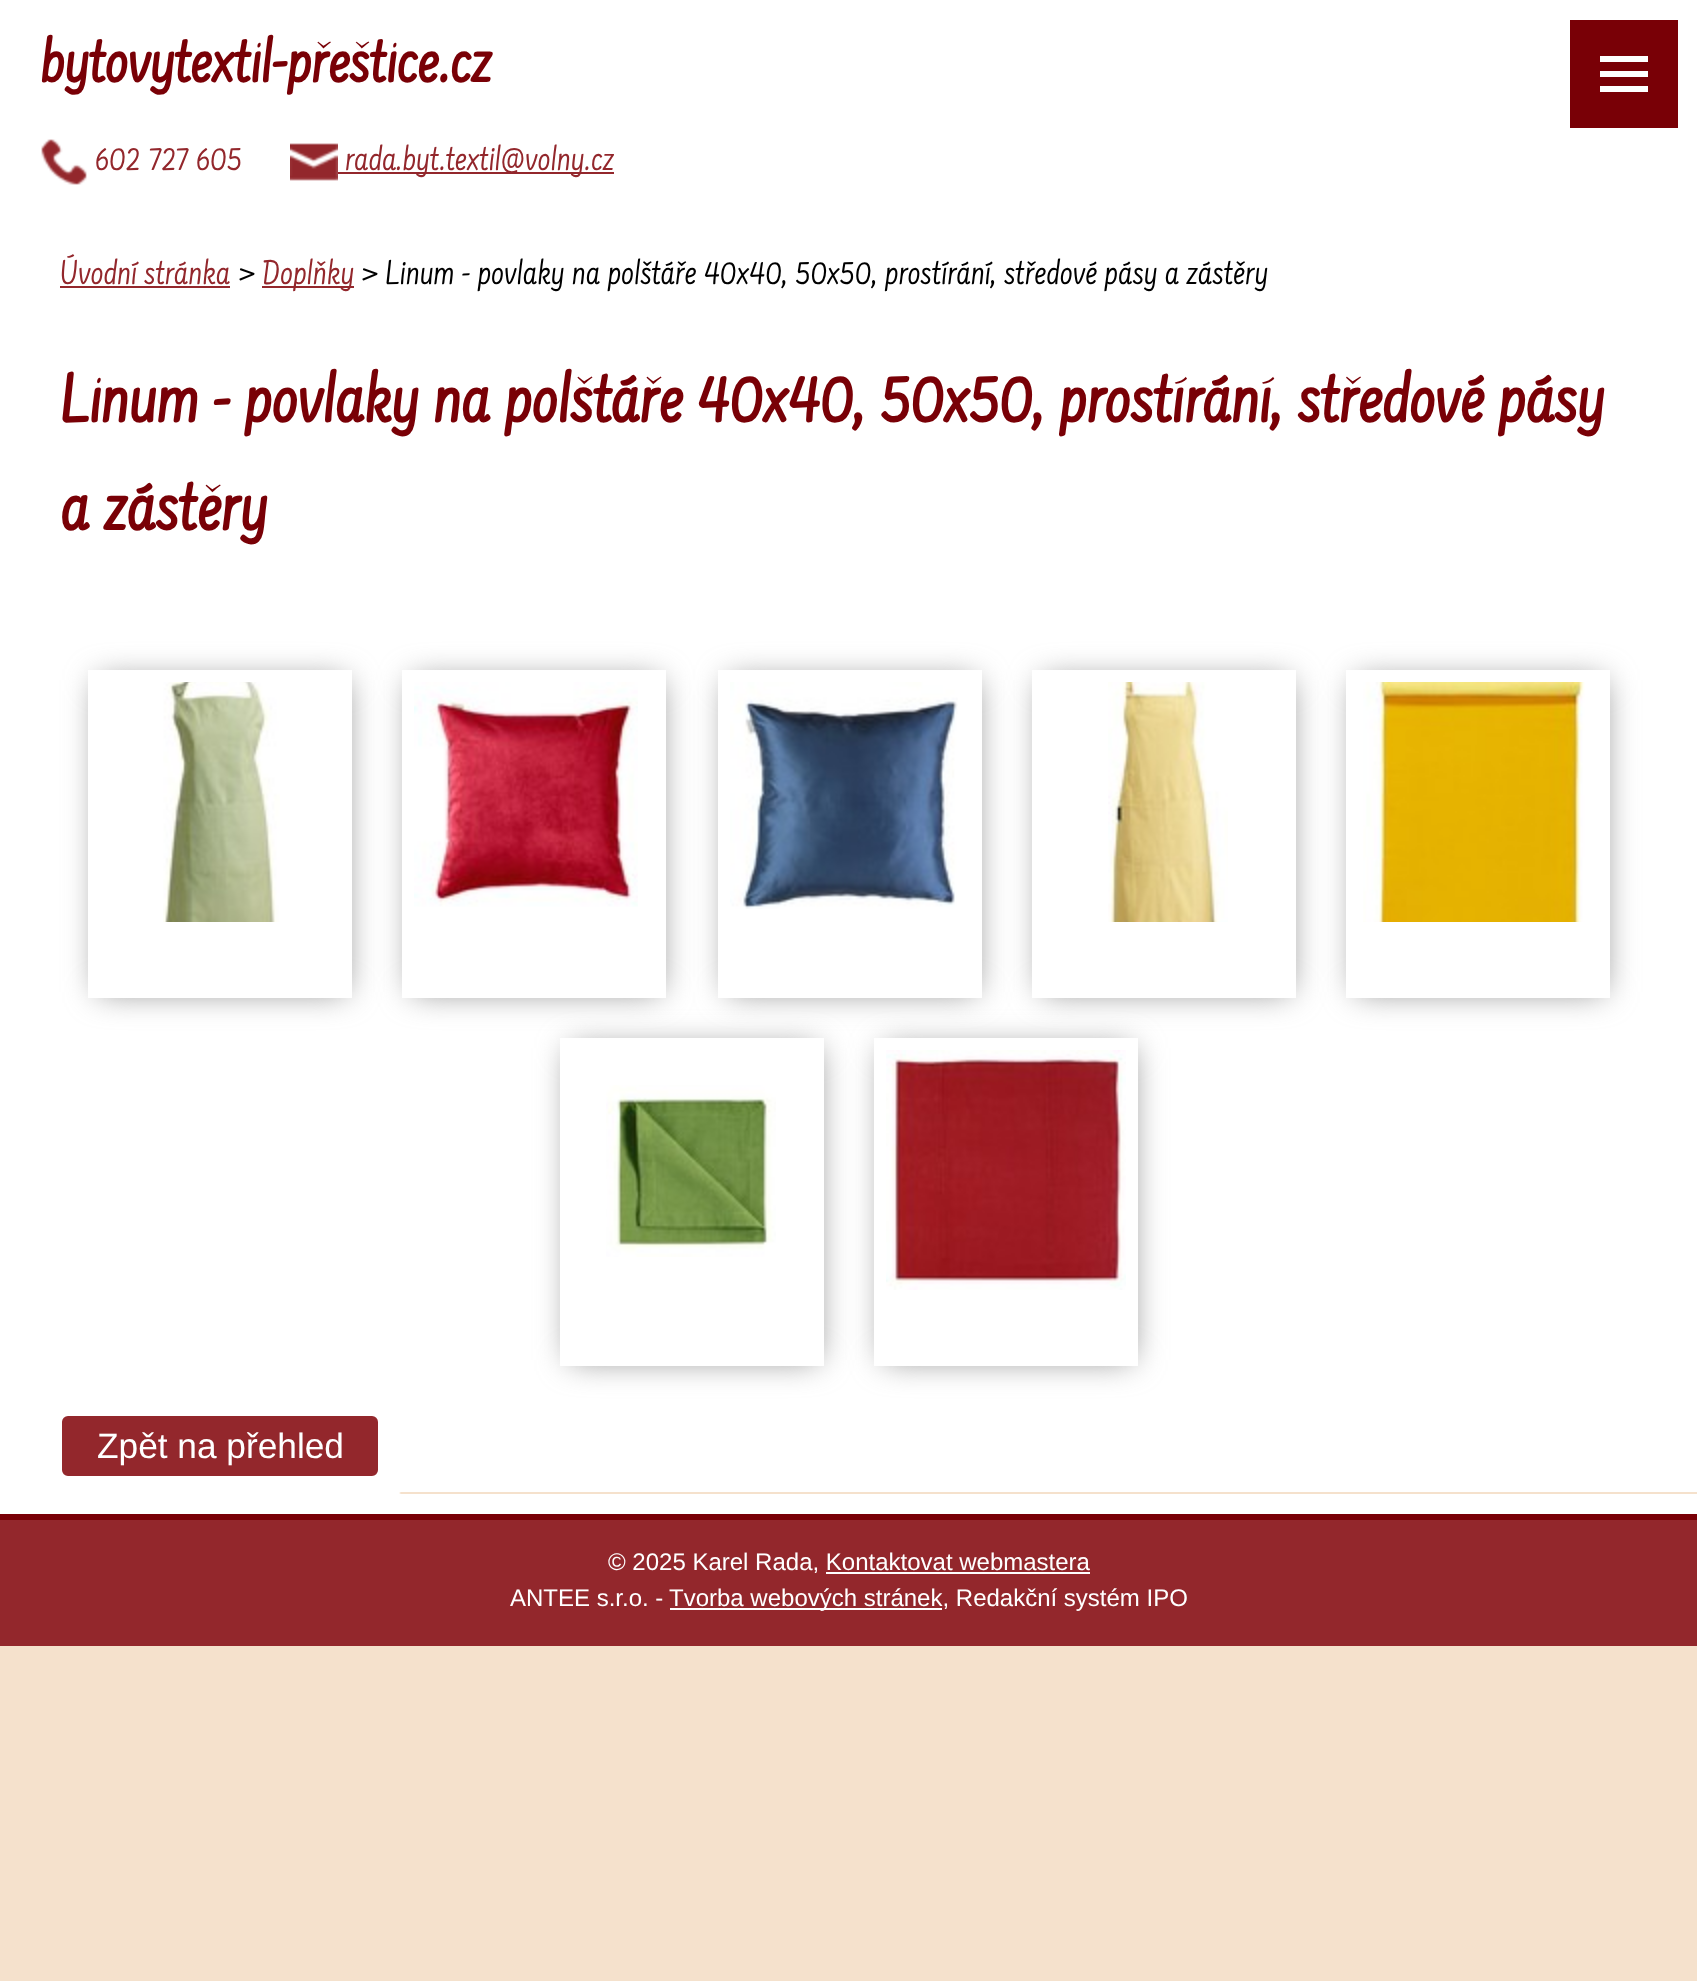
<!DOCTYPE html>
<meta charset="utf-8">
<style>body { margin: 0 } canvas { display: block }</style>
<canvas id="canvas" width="1697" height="1981"></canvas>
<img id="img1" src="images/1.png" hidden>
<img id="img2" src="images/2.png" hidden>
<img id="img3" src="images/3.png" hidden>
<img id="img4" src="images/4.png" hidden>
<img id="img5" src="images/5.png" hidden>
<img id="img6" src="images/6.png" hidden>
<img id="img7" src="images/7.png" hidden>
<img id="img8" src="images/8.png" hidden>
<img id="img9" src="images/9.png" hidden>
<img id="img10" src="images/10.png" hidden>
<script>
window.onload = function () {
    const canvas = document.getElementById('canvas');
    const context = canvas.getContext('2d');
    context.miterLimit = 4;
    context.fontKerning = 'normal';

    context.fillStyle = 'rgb(245, 225, 204)';
    context.fillRect(0, 0, 1697, 1981);
    context.fillStyle = 'rgb(255, 255, 255)';
    context.fillRect(0, 0, 1697, 1492);
    context.drawImage(document.getElementById('img1'), 41, 139, 46, 46);
    context.drawImage(document.getElementById('img2'), 290, 143, 48, 38);
    context.fillStyle = 'rgb(147, 39, 44)';
    context.fillRect(338, 172, 276, 2);
    context.fillStyle = 'rgb(121, 0, 6)';
    context.fillRect(1570, 20, 108, 108);
    context.fillStyle = 'rgb(255, 255, 255)';
    context.beginPath();
    context.moveTo(1600, 92);
    context.lineTo(1600, 86);
    context.lineTo(1648, 86);
    context.lineTo(1648, 92);
    context.closePath();
    context.moveTo(1600, 56);
    context.lineTo(1648, 56);
    context.lineTo(1648, 62);
    context.lineTo(1600, 62);
    context.closePath();
    context.moveTo(1600, 77);
    context.lineTo(1600, 71);
    context.lineTo(1648, 71);
    context.lineTo(1648, 77);
    context.closePath();
    context.fill();
    context.drawImage(document.getElementById('img3'), 0, 1492, 401, 2);
    context.fillStyle = 'rgb(147, 39, 44)';
    context.fillRect(60, 286, 170, 2);
    context.fillRect(262, 286, 92, 2);
    context.save();
    context.beginPath();
    context.moveTo(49, 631);
    context.lineTo(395, 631);
    context.lineTo(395, 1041);
    context.lineTo(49, 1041);
    context.closePath();
    context.moveTo(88, 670);
    context.lineTo(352, 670);
    context.lineTo(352, 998);
    context.lineTo(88, 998);
    context.closePath();
    context.clip('evenodd');
    context.fillStyle = 'rgb(136, 136, 136)';
    context.filter = 'blur(16px)';
    context.beginPath();
    context.rect(98, 680, 248, 312);
    context.fill();
    context.filter = 'none';
    context.restore();
    context.drawImage(document.getElementById('img4'), 163, 682, 117, 240);
    context.save();
    context.beginPath();
    context.moveTo(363, 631);
    context.lineTo(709, 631);
    context.lineTo(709, 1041);
    context.lineTo(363, 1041);
    context.closePath();
    context.moveTo(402, 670);
    context.lineTo(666, 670);
    context.lineTo(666, 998);
    context.lineTo(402, 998);
    context.closePath();
    context.clip('evenodd');
    context.fillStyle = 'rgb(136, 136, 136)';
    context.filter = 'blur(16px)';
    context.beginPath();
    context.rect(412, 680, 248, 312);
    context.fill();
    context.filter = 'none';
    context.restore();
    context.drawImage(document.getElementById('img5'), 414, 682, 224, 225);
    context.save();
    context.beginPath();
    context.moveTo(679, 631);
    context.lineTo(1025, 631);
    context.lineTo(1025, 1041);
    context.lineTo(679, 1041);
    context.closePath();
    context.moveTo(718, 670);
    context.lineTo(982, 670);
    context.lineTo(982, 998);
    context.lineTo(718, 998);
    context.closePath();
    context.clip('evenodd');
    context.fillStyle = 'rgb(136, 136, 136)';
    context.filter = 'blur(16px)';
    context.beginPath();
    context.rect(728, 680, 248, 312);
    context.fill();
    context.filter = 'none';
    context.restore();
    context.drawImage(document.getElementById('img6'), 730, 682, 228, 227);
    context.save();
    context.beginPath();
    context.moveTo(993, 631);
    context.lineTo(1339, 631);
    context.lineTo(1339, 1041);
    context.lineTo(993, 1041);
    context.closePath();
    context.moveTo(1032, 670);
    context.lineTo(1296, 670);
    context.lineTo(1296, 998);
    context.lineTo(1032, 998);
    context.closePath();
    context.clip('evenodd');
    context.fillStyle = 'rgb(136, 136, 136)';
    context.filter = 'blur(16px)';
    context.beginPath();
    context.rect(1042, 680, 248, 312);
    context.fill();
    context.filter = 'none';
    context.restore();
    context.drawImage(document.getElementById('img7'), 1108, 682, 120, 240);
    context.save();
    context.beginPath();
    context.moveTo(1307, 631);
    context.lineTo(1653, 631);
    context.lineTo(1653, 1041);
    context.lineTo(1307, 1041);
    context.closePath();
    context.moveTo(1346, 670);
    context.lineTo(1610, 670);
    context.lineTo(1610, 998);
    context.lineTo(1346, 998);
    context.closePath();
    context.clip('evenodd');
    context.fillStyle = 'rgb(136, 136, 136)';
    context.filter = 'blur(16px)';
    context.beginPath();
    context.rect(1356, 680, 248, 312);
    context.fill();
    context.filter = 'none';
    context.restore();
    context.drawImage(document.getElementById('img8'), 1363, 682, 222, 240);
    context.save();
    context.beginPath();
    context.moveTo(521, 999);
    context.lineTo(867, 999);
    context.lineTo(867, 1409);
    context.lineTo(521, 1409);
    context.closePath();
    context.moveTo(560, 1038);
    context.lineTo(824, 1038);
    context.lineTo(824, 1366);
    context.lineTo(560, 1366);
    context.closePath();
    context.clip('evenodd');
    context.fillStyle = 'rgb(136, 136, 136)';
    context.filter = 'blur(16px)';
    context.beginPath();
    context.rect(570, 1048, 248, 312);
    context.fill();
    context.filter = 'none';
    context.restore();
    context.drawImage(document.getElementById('img9'), 606, 1085, 170, 172);
    context.save();
    context.beginPath();
    context.moveTo(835, 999);
    context.lineTo(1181, 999);
    context.lineTo(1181, 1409);
    context.lineTo(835, 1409);
    context.closePath();
    context.moveTo(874, 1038);
    context.lineTo(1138, 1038);
    context.lineTo(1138, 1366);
    context.lineTo(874, 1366);
    context.closePath();
    context.clip('evenodd');
    context.fillStyle = 'rgb(136, 136, 136)';
    context.filter = 'blur(16px)';
    context.beginPath();
    context.rect(884, 1048, 248, 312);
    context.fill();
    context.filter = 'none';
    context.restore();
    context.drawImage(document.getElementById('img10'), 886, 1050, 240, 240);
    context.beginPath();
    context.roundRect(61, 1415, 318, 62, 7);
    context.fill();
    context.strokeStyle = 'rgb(255, 255, 255)';
    context.lineWidth = 2;
    context.stroke();
    context.fillStyle = 'rgb(255, 255, 255)';
    context.fillRect(0, 1494, 1697, 20);
    context.fillStyle = 'rgb(121, 0, 6)';
    context.fillRect(0, 1514, 1697, 6);
    context.fillStyle = 'rgb(147, 39, 44)';
    context.fillRect(0, 1520, 1697, 126);
    context.fillStyle = 'rgb(255, 255, 255)';
    context.fillRect(826, 1572, 264, 2);
    context.fillRect(670, 1608, 272, 2);
    context.font = 'bold 64px Farsan';
    context.fillStyle = 'rgb(121, 0, 6)';
    context.fillText('bytovytextil-přeštice.cz', 40, 82);
    context.font = '36px Farsan';
    context.fillStyle = 'rgb(147, 39, 44)';
    context.fillText('602 727 605', 95, 170);
    context.fillText('rada.byt.textil@volny.cz', 345, 170);
    context.fillText('Úvodní stránka', 60, 284);
    context.fillStyle = 'rgb(0, 0, 0)';
    context.fillText('>', 238, 284);
    context.fillStyle = 'rgb(147, 39, 44)';
    context.fillText('Doplňky', 262, 284);
    context.fillStyle = 'rgb(0, 0, 0)';
    context.fillText('> Linum - povlaky na polštáře 40x40, 50x50, prostírání, středové pásy a zástěry', 361, 284);
    context.font = 'bold 72px Farsan';
    context.fillStyle = 'rgb(121, 0, 6)';
    context.fillText('Linum - povlaky na polštáře 40x40, 50x50, prostírání, středové pásy', 60, 422);
    context.fillText('a zástěry', 60, 530);
    context.font = '35.25px Liberation Sans';
    context.fillStyle = 'rgb(255, 255, 255)';
    context.fillText('Zpět na přehled', 97, 1458);
    context.font = '24px Liberation Sans';
    context.fillText('© 2025 Karel Rada, Kontaktovat webmastera', 608, 1570);
    context.fillText('ANTEE s.r.o. -', 510, 1606);
    context.fillText('Tvorba webových stránek, Redakční systém IPO', 669, 1606);
};
</script>
